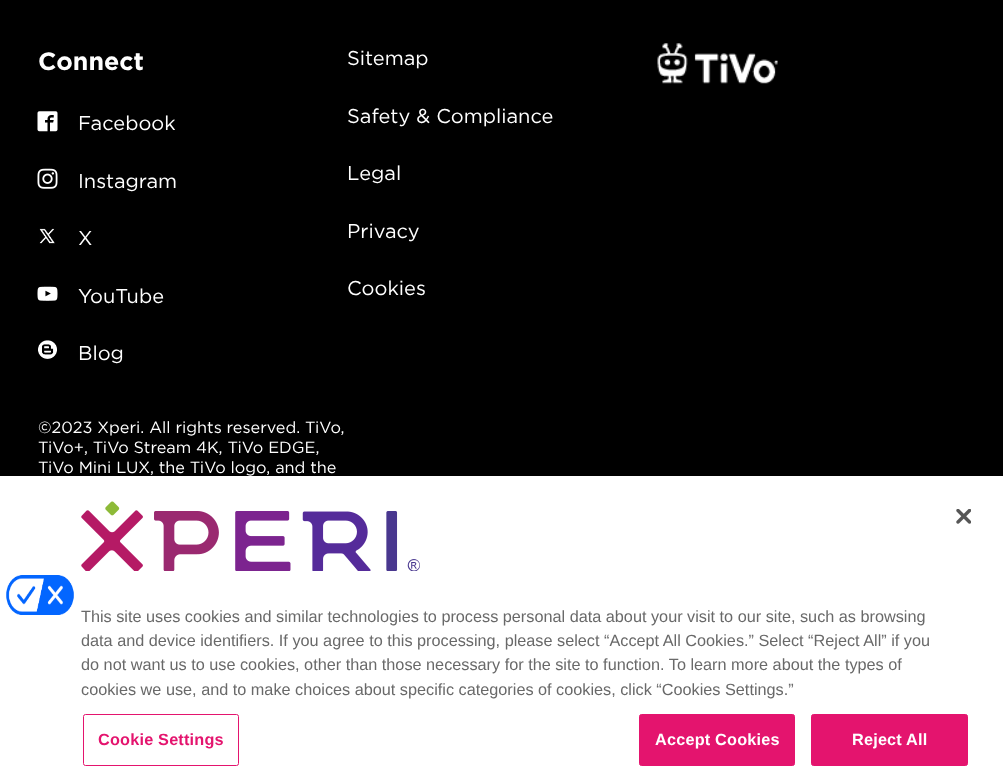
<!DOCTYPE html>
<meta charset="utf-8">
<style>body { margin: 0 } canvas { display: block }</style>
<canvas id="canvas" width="1003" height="783"></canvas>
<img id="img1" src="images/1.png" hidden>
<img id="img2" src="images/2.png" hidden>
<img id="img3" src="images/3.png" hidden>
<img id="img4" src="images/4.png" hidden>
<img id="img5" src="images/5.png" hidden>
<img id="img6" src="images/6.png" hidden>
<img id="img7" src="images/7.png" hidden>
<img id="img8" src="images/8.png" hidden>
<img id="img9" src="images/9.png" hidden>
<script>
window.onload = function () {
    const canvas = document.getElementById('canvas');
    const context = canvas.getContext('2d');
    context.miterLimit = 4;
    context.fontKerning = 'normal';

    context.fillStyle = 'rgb(0, 0, 0)';
    context.fillRect(0, 0, 1003, 783);
    context.drawImage(document.getElementById('img1'), 37, 111, 21, 21);
    context.drawImage(document.getElementById('img2'), 37, 168, 21, 21);
    context.drawImage(document.getElementById('img3'), 39, 228, 16, 16);
    context.drawImage(document.getElementById('img4'), 37, 286, 21, 15);
    context.drawImage(document.getElementById('img5'), 38, 340, 19, 19);
    context.drawImage(document.getElementById('img6'), 657, 43, 121, 41);
    context.fillStyle = 'rgba(0, 0, 0, 0.2)';
    context.filter = 'blur(11px)';
    context.beginPath();
    context.rect(0, 476, 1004, 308);
    context.fill();
    context.filter = 'none';
    context.fillStyle = 'rgb(255, 255, 255)';
    context.fillRect(0, 476, 1003, 307);
    context.drawImage(document.getElementById('img7'), 956, 509, 15, 15);
    context.drawImage(document.getElementById('img8'), 6, 575, 68, 40);
    context.drawImage(document.getElementById('img9'), 81, 501, 339, 70);
    context.beginPath();
    context.roundRect(83.5, 714.5, 155, 51, 2);
    context.strokeStyle = 'rgb(228, 20, 110)';
    context.stroke();
    context.fillStyle = 'rgb(228, 20, 110)';
    context.beginPath();
    context.roundRect(639.5, 714.5, 155, 51, 2);
    context.fill();
    context.stroke();
    context.beginPath();
    context.roundRect(811.5, 714.5, 156, 51, 2);
    context.fill();
    context.stroke();
    context.font = 'bold 25px Gotham';
    context.fillStyle = 'rgb(255, 255, 255)';
    context.fillText('Connect', 38, 70);
    context.font = '20px Gotham';
    context.fillText('Facebook', 78, 130);
    context.fillText('Instagram', 78, 188);
    context.fillText('X', 78, 245);
    context.fillText('YouTube', 78, 303);
    context.fillText('Blog', 78, 360);
    context.fillText('Sitemap', 347, 65);
    context.fillText('Safety & Compliance', 347, 123);
    context.fillText('Legal', 347, 180);
    context.fillText('Privacy', 347, 238);
    context.fillText('Cookies', 347, 295);
    context.font = '16.25px Gotham';
    context.fillText('©2023 Xperi. All rights reserved. TiVo,', 38, 433);
    context.fillText('TiVo+, TiVo Stream 4K, TiVo EDGE,', 38, 453);
    context.fillText('TiVo Mini LUX, the TiVo logo, and the', 38, 473);
    context.font = '16.25px Liberation Sans';
    context.fillStyle = 'rgb(105, 105, 105)';
    context.fillText('This site uses cookies and similar technologies to process personal data about your visit to our site, such as browsing', 81, 622);
    context.fillText('data and device identifiers. If you agree to this processing, please select “Accept All Cookies.” Select “Reject All” if you', 81, 646);
    context.fillText('do not want us to use cookies, other than those necessary for the site to function. To learn more about the types of', 81, 670);
    context.fillText('cookies we use, and to make choices about specific categories of cookies, click “Cookies Settings.”', 81, 695);
    context.letterSpacing = '0.2px';
    context.font = 'bold 16.25px Liberation Sans';
    context.fillStyle = 'rgb(228, 20, 110)';
    context.fillText('Cookie Settings', 98, 745);
    context.fillStyle = 'rgb(255, 255, 255)';
    context.fillText('Accept Cookies', 655, 745);
    context.fillText('Reject All', 852, 745);
};
</script>
